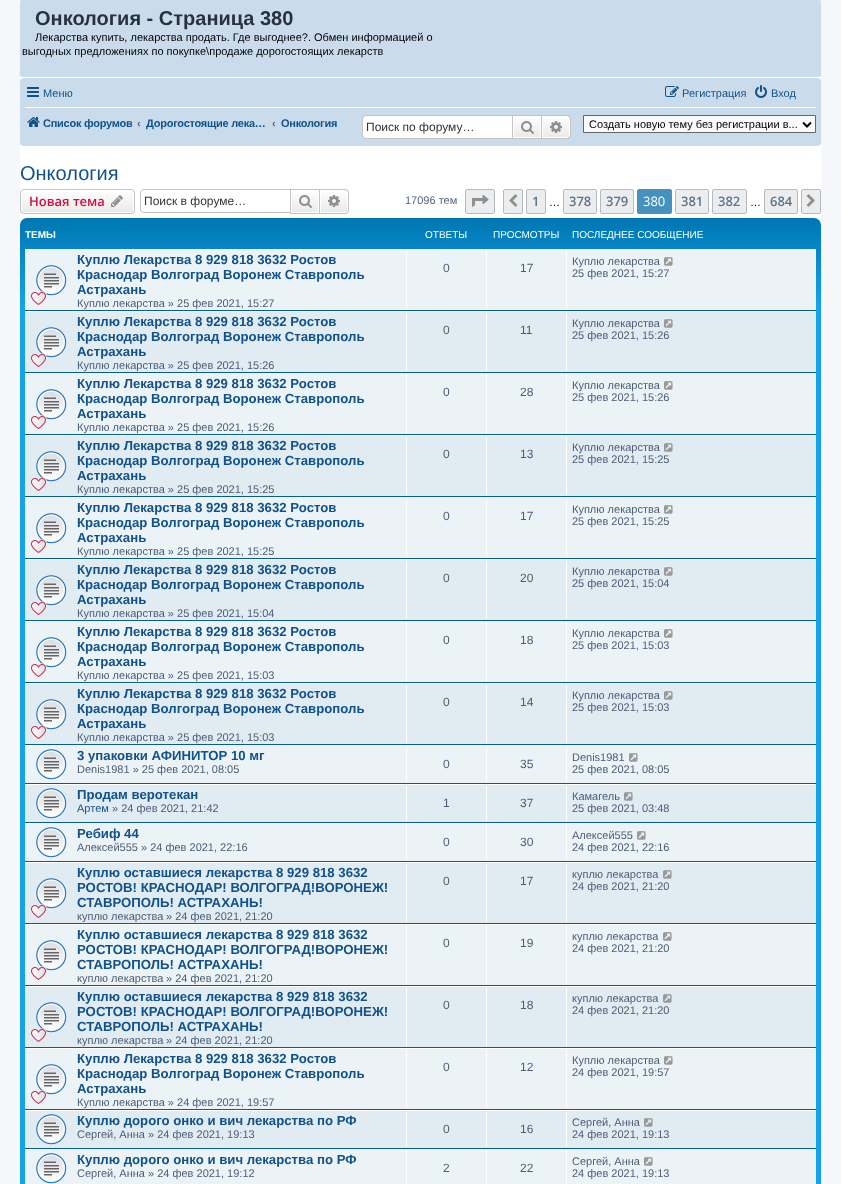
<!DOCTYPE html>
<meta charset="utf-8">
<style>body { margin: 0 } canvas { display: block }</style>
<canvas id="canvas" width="841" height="1184"></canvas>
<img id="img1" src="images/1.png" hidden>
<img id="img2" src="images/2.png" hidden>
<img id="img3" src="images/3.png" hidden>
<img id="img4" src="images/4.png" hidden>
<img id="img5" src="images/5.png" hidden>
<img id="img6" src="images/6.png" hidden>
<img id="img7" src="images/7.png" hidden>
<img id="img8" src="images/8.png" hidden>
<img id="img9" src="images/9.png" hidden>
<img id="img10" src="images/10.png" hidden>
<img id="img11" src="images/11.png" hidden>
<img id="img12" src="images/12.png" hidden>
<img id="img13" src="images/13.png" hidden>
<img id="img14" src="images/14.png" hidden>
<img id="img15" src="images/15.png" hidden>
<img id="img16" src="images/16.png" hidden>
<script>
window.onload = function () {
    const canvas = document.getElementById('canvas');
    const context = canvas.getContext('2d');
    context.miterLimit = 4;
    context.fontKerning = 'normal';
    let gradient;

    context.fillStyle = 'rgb(245, 247, 250)';
    context.fillRect(0, 0, 841, 1184);
    context.fillStyle = 'rgb(255, 255, 255)';
    context.beginPath();
    context.roundRect(20, 0, 801, 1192, 8);
    context.fill();
    context.fillStyle = 'rgb(202, 220, 235)';
    context.beginPath();
    context.roundRect(20, 0, 801, 77, 2);
    context.fill();
    context.beginPath();
    context.roundRect(20, 78, 801, 68, 4);
    context.fill();
    context.drawImage(document.getElementById('img1'), 27, 87, 12, 10);
    context.drawImage(document.getElementById('img2'), 665, 86, 14, 11);
    context.drawImage(document.getElementById('img3'), 755, 85, 12, 13);
    context.fillStyle = 'rgb(255, 255, 255)';
    context.fillRect(25, 107, 791, 1);
    context.drawImage(document.getElementById('img4'), 27, 117, 13, 10);
    context.beginPath();
    context.roundRect(363, 116, 149, 22, [3, 0, 0, 3]);
    context.fill();
    context.fillStyle = 'rgb(199, 195, 191)';
    context.beginPath();
    context.moveTo(366, 115);
    context.lineTo(512, 115);
    context.lineTo(512, 139);
    context.lineTo(366, 139);
    context.bezierCurveTo(364, 139, 362, 137, 362, 135);
    context.lineTo(362, 119);
    context.bezierCurveTo(362, 117, 364, 115, 366, 115);
    context.closePath();
    context.moveTo(366, 116);
    context.lineTo(512, 116);
    context.lineTo(512, 138);
    context.lineTo(366, 138);
    context.bezierCurveTo(364, 138, 363, 137, 363, 135);
    context.lineTo(363, 119);
    context.bezierCurveTo(363, 117, 364, 116, 366, 116);
    context.closePath();
    context.fill('evenodd');
    gradient = context.createLinearGradient(527, 116, 527, 138);
    gradient.addColorStop(0, 'rgb(255, 255, 255)');
    gradient.addColorStop(1, 'rgb(233, 233, 233)');
    context.fillStyle = gradient;
    context.fillRect(514, 117, 26, 20);
    context.strokeStyle = 'rgb(255, 255, 255)';
    context.strokeRect(513.5, 116.5, 27, 21);
    context.strokeStyle = 'rgb(199, 195, 191)';
    context.strokeRect(512.5, 115.5, 29, 23);
    context.drawImage(document.getElementById('img5'), 521, 121, 13, 13);
    gradient = context.createLinearGradient(556, 116, 556, 138);
    gradient.addColorStop(0, 'rgb(255, 255, 255)');
    gradient.addColorStop(1, 'rgb(233, 233, 233)');
    context.fillStyle = gradient;
    context.beginPath();
    context.roundRect(542.5, 116.5, 27, 21, [0, 2.5, 2.5, 0]);
    context.fill();
    context.strokeStyle = 'rgb(255, 255, 255)';
    context.stroke();
    context.fillStyle = 'rgb(199, 195, 191)';
    context.beginPath();
    context.moveTo(542, 115);
    context.lineTo(567, 115);
    context.bezierCurveTo(569, 115, 571, 117, 571, 119);
    context.lineTo(571, 135);
    context.bezierCurveTo(571, 137, 569, 139, 567, 139);
    context.lineTo(542, 139);
    context.closePath();
    context.moveTo(542, 116);
    context.lineTo(567, 116);
    context.bezierCurveTo(568.5, 116, 570, 117.5, 570, 119);
    context.lineTo(570, 135);
    context.bezierCurveTo(570, 136.5, 568.5, 138, 567, 138);
    context.lineTo(542, 138);
    context.closePath();
    context.fill('evenodd');
    context.drawImage(document.getElementById('img6'), 550, 121, 12, 12);
    context.fillStyle = 'rgb(250, 250, 250)';
    context.beginPath();
    context.rect(583.5, 115.5, 232, 17);
    context.fill();
    context.strokeStyle = 'rgb(102, 102, 102)';
    context.stroke();
    context.beginPath();
    context.moveTo(803, 122.5);
    context.lineTo(807, 126.5);
    context.lineTo(811, 122.5);
    context.strokeStyle = 'rgb(0, 0, 0)';
    context.lineWidth = 2;
    context.stroke();
    context.save();
    context.beginPath();
    context.roundRect(20, 189, 115, 25, 4);
    context.clip();
    gradient = context.createLinearGradient(78, 190, 78, 213);
    gradient.addColorStop(0, 'rgb(255, 255, 255)');
    gradient.addColorStop(1, 'rgb(233, 233, 233)');
    context.fillStyle = gradient;
    context.fillRect(20, 190, 115, 23);
    context.restore();
    context.beginPath();
    context.roundRect(21.5, 190.5, 112, 22, 2.5);
    context.strokeStyle = 'rgb(255, 255, 255)';
    context.lineWidth = 1;
    context.stroke();
    context.beginPath();
    context.roundRect(20.5, 189.5, 114, 24, 3.5);
    context.strokeStyle = 'rgb(199, 195, 191)';
    context.stroke();
    context.drawImage(document.getElementById('img7'), 111, 195, 12, 12);
    context.fillStyle = 'rgb(199, 195, 191)';
    context.beginPath();
    context.moveTo(144, 189);
    context.lineTo(290, 189);
    context.lineTo(290, 213);
    context.lineTo(144, 213);
    context.bezierCurveTo(142, 213, 140, 211, 140, 209);
    context.lineTo(140, 193);
    context.bezierCurveTo(140, 191, 142, 189, 144, 189);
    context.closePath();
    context.moveTo(144, 190);
    context.lineTo(290, 190);
    context.lineTo(290, 212);
    context.lineTo(144, 212);
    context.bezierCurveTo(142, 212, 141, 211, 141, 209);
    context.lineTo(141, 193);
    context.bezierCurveTo(141, 191, 142, 190, 144, 190);
    context.closePath();
    context.fill('evenodd');
    gradient = context.createLinearGradient(305, 190, 305, 213);
    gradient.addColorStop(0, 'rgb(255, 255, 255)');
    gradient.addColorStop(1, 'rgb(233, 233, 233)');
    context.fillStyle = gradient;
    context.fillRect(292, 193, 26, 19);
    context.strokeRect(290.5, 189.5, 29, 24);
    context.drawImage(document.getElementById('img5'), 299, 195, 13, 13);
    gradient = context.createLinearGradient(334, 190, 334, 213);
    gradient.addColorStop(0, 'rgb(255, 255, 255)');
    gradient.addColorStop(1, 'rgb(233, 233, 233)');
    context.fillStyle = gradient;
    context.beginPath();
    context.roundRect(320.5, 190.5, 27, 22, [0, 2.5, 2.5, 0]);
    context.fill();
    context.strokeStyle = 'rgb(255, 255, 255)';
    context.stroke();
    context.fillStyle = 'rgb(199, 195, 191)';
    context.beginPath();
    context.moveTo(320, 189);
    context.lineTo(345, 189);
    context.bezierCurveTo(347, 189, 349, 191, 349, 193);
    context.lineTo(349, 210);
    context.bezierCurveTo(349, 212, 347, 214, 345, 214);
    context.lineTo(320, 214);
    context.closePath();
    context.moveTo(320, 190);
    context.lineTo(345, 190);
    context.bezierCurveTo(346.5, 190, 348, 191.5, 348, 193);
    context.lineTo(348, 210);
    context.bezierCurveTo(348, 211.5, 346.5, 213, 345, 213);
    context.lineTo(320, 213);
    context.closePath();
    context.fill('evenodd');
    context.drawImage(document.getElementById('img6'), 328, 195, 12, 12);
    context.fillStyle = 'rgb(236, 237, 238)';
    context.beginPath();
    context.roundRect(465.5, 189.5, 29, 24, 1.5);
    context.fill();
    context.strokeStyle = 'rgb(180, 186, 192)';
    context.stroke();
    context.drawImage(document.getElementById('img8'), 472, 195, 17, 12);
    context.beginPath();
    context.roundRect(503.5, 189.5, 19, 24, 1.5);
    context.fill();
    context.stroke();
    context.drawImage(document.getElementById('img9'), 509, 194, 9, 13);
    context.beginPath();
    context.roundRect(526.5, 189.5, 19, 24, 1.5);
    context.fill();
    context.stroke();
    context.beginPath();
    context.roundRect(563.5, 189.5, 33, 24, 1.5);
    context.fill();
    context.stroke();
    context.beginPath();
    context.roundRect(600.5, 189.5, 33, 24, 1.5);
    context.fill();
    context.stroke();
    context.fillStyle = 'rgb(70, 146, 191)';
    context.beginPath();
    context.roundRect(637.5, 189.5, 34, 24, 1.5);
    context.fill();
    context.strokeStyle = 'rgb(70, 146, 191)';
    context.stroke();
    context.fillStyle = 'rgb(236, 237, 238)';
    context.beginPath();
    context.roundRect(675.5, 189.5, 33, 24, 1.5);
    context.fill();
    context.strokeStyle = 'rgb(180, 186, 192)';
    context.stroke();
    context.beginPath();
    context.roundRect(712.5, 189.5, 34, 24, 1.5);
    context.fill();
    context.stroke();
    context.beginPath();
    context.roundRect(764.5, 189.5, 33, 24, 1.5);
    context.fill();
    context.stroke();
    context.beginPath();
    context.roundRect(801.5, 189.5, 19, 24, 1.5);
    context.fill();
    context.stroke();
    context.drawImage(document.getElementById('img10'), 806, 194, 9, 13);
    gradient = context.createLinearGradient(420, 218, 421, 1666);
    gradient.addColorStop(0, 'rgb(106, 206, 255)');
    gradient.addColorStop(0, 'rgb(0, 118, 177)');
    gradient.addColorStop(0.06, 'rgb(18, 163, 235)');
    gradient.addColorStop(1, 'rgb(18, 163, 235)');
    context.fillStyle = gradient;
    context.beginPath();
    context.roundRect(20, 218, 801, 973, 7);
    context.fill();
    context.fillStyle = 'rgb(236, 243, 247)';
    context.fillRect(25, 250, 791, 60);
    context.fillStyle = 'rgb(255, 255, 255)';
    context.fillRect(25, 249, 791, 1);
    context.fillStyle = 'rgb(0, 96, 143)';
    context.fillRect(25, 310, 791, 1);
    context.drawImage(document.getElementById('img11'), 36, 265, 31, 31);
    context.drawImage(document.getElementById('img12'), 30, 291, 17, 15);
    context.fillStyle = 'rgb(255, 255, 255)';
    context.fillRect(406, 251, 1, 58);
    context.fillRect(486, 251, 1, 58);
    context.fillRect(566, 251, 1, 58);
    context.drawImage(document.getElementById('img13'), 664, 257, 9, 9);
    context.fillStyle = 'rgb(225, 235, 242)';
    context.fillRect(25, 312, 791, 60);
    context.fillStyle = 'rgb(255, 255, 255)';
    context.fillRect(25, 311, 791, 1);
    context.fillStyle = 'rgb(0, 96, 143)';
    context.fillRect(25, 372, 791, 1);
    context.drawImage(document.getElementById('img14'), 36, 327, 31, 31);
    context.drawImage(document.getElementById('img15'), 30, 353, 17, 15);
    context.fillStyle = 'rgb(255, 255, 255)';
    context.fillRect(406, 313, 1, 58);
    context.fillRect(486, 313, 1, 58);
    context.fillRect(566, 313, 1, 58);
    context.drawImage(document.getElementById('img16'), 664, 319, 9, 9);
    context.fillStyle = 'rgb(236, 243, 247)';
    context.fillRect(25, 374, 791, 60);
    context.fillStyle = 'rgb(255, 255, 255)';
    context.fillRect(25, 373, 791, 1);
    context.fillStyle = 'rgb(0, 96, 143)';
    context.fillRect(25, 434, 791, 1);
    context.drawImage(document.getElementById('img11'), 36, 389, 31, 31);
    context.drawImage(document.getElementById('img12'), 30, 415, 17, 15);
    context.fillStyle = 'rgb(255, 255, 255)';
    context.fillRect(406, 375, 1, 58);
    context.fillRect(486, 375, 1, 58);
    context.fillRect(566, 375, 1, 58);
    context.drawImage(document.getElementById('img13'), 664, 381, 9, 9);
    context.fillStyle = 'rgb(225, 235, 242)';
    context.fillRect(25, 436, 791, 60);
    context.fillStyle = 'rgb(255, 255, 255)';
    context.fillRect(25, 435, 791, 1);
    context.fillStyle = 'rgb(0, 96, 143)';
    context.fillRect(25, 496, 791, 1);
    context.drawImage(document.getElementById('img14'), 36, 451, 31, 31);
    context.drawImage(document.getElementById('img15'), 30, 477, 17, 15);
    context.fillStyle = 'rgb(255, 255, 255)';
    context.fillRect(406, 437, 1, 58);
    context.fillRect(486, 437, 1, 58);
    context.fillRect(566, 437, 1, 58);
    context.drawImage(document.getElementById('img16'), 664, 443, 9, 9);
    context.fillStyle = 'rgb(236, 243, 247)';
    context.fillRect(25, 498, 791, 60);
    context.fillStyle = 'rgb(255, 255, 255)';
    context.fillRect(25, 497, 791, 1);
    context.fillStyle = 'rgb(0, 96, 143)';
    context.fillRect(25, 558, 791, 1);
    context.drawImage(document.getElementById('img11'), 36, 513, 31, 31);
    context.drawImage(document.getElementById('img12'), 30, 539, 17, 15);
    context.fillStyle = 'rgb(255, 255, 255)';
    context.fillRect(406, 499, 1, 58);
    context.fillRect(486, 499, 1, 58);
    context.fillRect(566, 499, 1, 58);
    context.drawImage(document.getElementById('img13'), 664, 505, 9, 9);
    context.fillStyle = 'rgb(225, 235, 242)';
    context.fillRect(25, 560, 791, 60);
    context.fillStyle = 'rgb(255, 255, 255)';
    context.fillRect(25, 559, 791, 1);
    context.fillStyle = 'rgb(0, 96, 143)';
    context.fillRect(25, 620, 791, 1);
    context.drawImage(document.getElementById('img14'), 36, 575, 31, 31);
    context.drawImage(document.getElementById('img15'), 30, 601, 17, 15);
    context.fillStyle = 'rgb(255, 255, 255)';
    context.fillRect(406, 561, 1, 58);
    context.fillRect(486, 561, 1, 58);
    context.fillRect(566, 561, 1, 58);
    context.drawImage(document.getElementById('img16'), 664, 567, 9, 9);
    context.fillStyle = 'rgb(236, 243, 247)';
    context.fillRect(25, 622, 791, 60);
    context.fillStyle = 'rgb(255, 255, 255)';
    context.fillRect(25, 621, 791, 1);
    context.fillStyle = 'rgb(0, 96, 143)';
    context.fillRect(25, 682, 791, 1);
    context.drawImage(document.getElementById('img11'), 36, 637, 31, 31);
    context.drawImage(document.getElementById('img12'), 30, 663, 17, 15);
    context.fillStyle = 'rgb(255, 255, 255)';
    context.fillRect(406, 623, 1, 58);
    context.fillRect(486, 623, 1, 58);
    context.fillRect(566, 623, 1, 58);
    context.drawImage(document.getElementById('img13'), 664, 629, 9, 9);
    context.fillStyle = 'rgb(225, 235, 242)';
    context.fillRect(25, 684, 791, 60);
    context.fillStyle = 'rgb(255, 255, 255)';
    context.fillRect(25, 683, 791, 1);
    context.fillStyle = 'rgb(0, 96, 143)';
    context.fillRect(25, 744, 791, 1);
    context.drawImage(document.getElementById('img14'), 36, 699, 31, 31);
    context.drawImage(document.getElementById('img15'), 30, 725, 17, 15);
    context.fillStyle = 'rgb(255, 255, 255)';
    context.fillRect(406, 685, 1, 58);
    context.fillRect(486, 685, 1, 58);
    context.fillRect(566, 685, 1, 58);
    context.drawImage(document.getElementById('img16'), 664, 691, 9, 9);
    context.fillStyle = 'rgb(236, 243, 247)';
    context.fillRect(25, 746, 791, 37);
    context.fillStyle = 'rgb(255, 255, 255)';
    context.fillRect(25, 745, 791, 1);
    context.fillStyle = 'rgb(0, 96, 143)';
    context.fillRect(25, 783, 791, 1);
    context.drawImage(document.getElementById('img11'), 36, 749, 31, 31);
    context.fillStyle = 'rgb(255, 255, 255)';
    context.fillRect(406, 747, 1, 35);
    context.fillRect(486, 747, 1, 35);
    context.fillRect(566, 747, 1, 35);
    context.drawImage(document.getElementById('img13'), 629, 753, 9, 9);
    context.fillStyle = 'rgb(225, 235, 242)';
    context.fillRect(25, 785, 791, 37);
    context.fillStyle = 'rgb(255, 255, 255)';
    context.fillRect(25, 784, 791, 1);
    context.fillStyle = 'rgb(0, 96, 143)';
    context.fillRect(25, 822, 791, 1);
    context.drawImage(document.getElementById('img14'), 36, 788, 31, 31);
    context.fillStyle = 'rgb(255, 255, 255)';
    context.fillRect(406, 786, 1, 35);
    context.fillRect(486, 786, 1, 35);
    context.fillRect(566, 786, 1, 35);
    context.drawImage(document.getElementById('img16'), 624, 792, 9, 9);
    context.fillStyle = 'rgb(236, 243, 247)';
    context.fillRect(25, 824, 791, 37);
    context.fillStyle = 'rgb(255, 255, 255)';
    context.fillRect(25, 823, 791, 1);
    context.fillStyle = 'rgb(0, 96, 143)';
    context.fillRect(25, 861, 791, 1);
    context.drawImage(document.getElementById('img11'), 36, 827, 31, 31);
    context.fillStyle = 'rgb(255, 255, 255)';
    context.fillRect(406, 825, 1, 35);
    context.fillRect(486, 825, 1, 35);
    context.fillRect(566, 825, 1, 35);
    context.drawImage(document.getElementById('img13'), 637, 831, 9, 9);
    context.fillStyle = 'rgb(225, 235, 242)';
    context.fillRect(25, 863, 791, 60);
    context.fillStyle = 'rgb(255, 255, 255)';
    context.fillRect(25, 862, 791, 1);
    context.fillStyle = 'rgb(0, 96, 143)';
    context.fillRect(25, 923, 791, 1);
    context.drawImage(document.getElementById('img14'), 36, 878, 31, 31);
    context.drawImage(document.getElementById('img15'), 30, 904, 17, 15);
    context.fillStyle = 'rgb(255, 255, 255)';
    context.fillRect(406, 864, 1, 58);
    context.fillRect(486, 864, 1, 58);
    context.fillRect(566, 864, 1, 58);
    context.drawImage(document.getElementById('img16'), 663, 870, 9, 9);
    context.fillStyle = 'rgb(236, 243, 247)';
    context.fillRect(25, 925, 791, 60);
    context.fillStyle = 'rgb(255, 255, 255)';
    context.fillRect(25, 924, 791, 1);
    context.fillStyle = 'rgb(0, 96, 143)';
    context.fillRect(25, 985, 791, 1);
    context.drawImage(document.getElementById('img11'), 36, 940, 31, 31);
    context.drawImage(document.getElementById('img12'), 30, 966, 17, 15);
    context.fillStyle = 'rgb(255, 255, 255)';
    context.fillRect(406, 926, 1, 58);
    context.fillRect(486, 926, 1, 58);
    context.fillRect(566, 926, 1, 58);
    context.drawImage(document.getElementById('img13'), 663, 932, 9, 9);
    context.fillStyle = 'rgb(225, 235, 242)';
    context.fillRect(25, 987, 791, 60);
    context.fillStyle = 'rgb(255, 255, 255)';
    context.fillRect(25, 986, 791, 1);
    context.fillStyle = 'rgb(0, 96, 143)';
    context.fillRect(25, 1047, 791, 1);
    context.drawImage(document.getElementById('img14'), 36, 1002, 31, 31);
    context.drawImage(document.getElementById('img15'), 30, 1028, 17, 15);
    context.fillStyle = 'rgb(255, 255, 255)';
    context.fillRect(406, 988, 1, 58);
    context.fillRect(486, 988, 1, 58);
    context.fillRect(566, 988, 1, 58);
    context.drawImage(document.getElementById('img16'), 663, 994, 9, 9);
    context.fillStyle = 'rgb(236, 243, 247)';
    context.fillRect(25, 1049, 791, 60);
    context.fillStyle = 'rgb(255, 255, 255)';
    context.fillRect(25, 1048, 791, 1);
    context.fillStyle = 'rgb(0, 96, 143)';
    context.fillRect(25, 1109, 791, 1);
    context.drawImage(document.getElementById('img11'), 36, 1064, 31, 31);
    context.drawImage(document.getElementById('img12'), 30, 1090, 17, 15);
    context.fillStyle = 'rgb(255, 255, 255)';
    context.fillRect(406, 1050, 1, 58);
    context.fillRect(486, 1050, 1, 58);
    context.fillRect(566, 1050, 1, 58);
    context.drawImage(document.getElementById('img13'), 664, 1056, 9, 9);
    context.fillStyle = 'rgb(225, 235, 242)';
    context.fillRect(25, 1111, 791, 37);
    context.fillStyle = 'rgb(255, 255, 255)';
    context.fillRect(25, 1110, 791, 1);
    context.fillStyle = 'rgb(0, 96, 143)';
    context.fillRect(25, 1148, 791, 1);
    context.drawImage(document.getElementById('img14'), 36, 1114, 31, 31);
    context.fillStyle = 'rgb(255, 255, 255)';
    context.fillRect(406, 1112, 1, 35);
    context.fillRect(486, 1112, 1, 35);
    context.fillRect(566, 1112, 1, 35);
    context.drawImage(document.getElementById('img16'), 644, 1118, 9, 9);
    context.fillStyle = 'rgb(236, 243, 247)';
    context.fillRect(25, 1150, 791, 34);
    context.fillStyle = 'rgb(255, 255, 255)';
    context.fillRect(25, 1149, 791, 1);
    context.drawImage(document.getElementById('img11'), 36, 1153, 31, 31);
    context.fillRect(406, 1151, 1, 33);
    context.fillRect(486, 1151, 1, 33);
    context.fillRect(566, 1151, 1, 33);
    context.drawImage(document.getElementById('img13'), 644, 1157, 9, 9);
    context.font = 'bold 20px Liberation Sans';
    context.fillStyle = 'rgb(40, 49, 63)';
    context.fillText('Онкология - Страница 380', 35, 25);
    context.font = '11px Liberation Sans';
    context.fillStyle = 'rgb(0, 0, 0)';
    context.fillText('Лекарства купить, лекарства продать. Где выгоднее?. Обмен информацией о', 35, 41);
    context.fillText('выгодных предложениях по покупке\\продаже дорогостоящих лекарств', 22, 55);
    context.fillStyle = 'rgb(16, 82, 137)';
    context.fillText('Меню', 43, 97);
    context.fillText('Р', 682, 97);
    context.fillText('егистрация', 689, 97);
    context.fillText('Вход', 771, 97);
    context.letterSpacing = '-0.25px';
    context.font = 'bold 11px Liberation Sans';
    context.fillText('Список форумов', 43, 127);
    context.letterSpacing = '0px';
    context.fillStyle = 'rgb(83, 100, 130)';
    context.fillText('‹', 137, 127);
    context.letterSpacing = '-0.25px';
    context.fillStyle = 'rgb(16, 82, 137)';
    context.fillText('Дорогостоящие лека…', 146, 127);
    context.letterSpacing = '0px';
    context.fillStyle = 'rgb(83, 100, 130)';
    context.fillText('‹', 272, 127);
    context.letterSpacing = '-0.25px';
    context.fillStyle = 'rgb(16, 82, 137)';
    context.fillText('Онкология', 281, 127);
    context.letterSpacing = '0px';
    context.font = '12px Liberation Sans';
    context.fillStyle = 'rgb(51, 51, 51)';
    context.fillText('Поиск по форуму…', 366, 131);
    context.font = '11px Liberation Sans';
    context.fillStyle = 'rgb(0, 0, 0)';
    context.fillText('Создать новую тему без регистрации в...', 589, 128);
    context.font = '20px Liberation Sans';
    context.fillStyle = 'rgb(16, 82, 137)';
    context.fillText('Онкология', 20, 180);
    context.font = '600 13px Open Sans';
    context.fillStyle = 'rgb(211, 17, 65)';
    context.fillText('Новая тема', 29, 206);
    context.font = '12px Liberation Sans';
    context.fillStyle = 'rgb(51, 51, 51)';
    context.fillText('Поиск в форуме…', 144, 205);
    context.font = '11px Liberation Sans';
    context.fillStyle = 'rgb(83, 100, 130)';
    context.fillText('17096 тем', 405, 204);
    context.font = '600 13px Open Sans';
    context.fillStyle = 'rgb(92, 117, 140)';
    context.fillText('1', 532, 206);
    context.font = '11px Liberation Sans';
    context.fillStyle = 'rgb(0, 0, 0)';
    context.fillText('…', 549, 206);
    context.font = '600 13px Open Sans';
    context.fillStyle = 'rgb(92, 117, 140)';
    context.fillText('378', 569, 206);
    context.fillText('379', 606, 206);
    context.font = '13px Open Sans';
    context.fillStyle = 'rgb(255, 255, 255)';
    context.fillText('380', 643, 206);
    context.font = '600 13px Open Sans';
    context.fillStyle = 'rgb(92, 117, 140)';
    context.fillText('381', 681, 206);
    context.fillText('382', 718, 206);
    context.font = '11px Liberation Sans';
    context.fillStyle = 'rgb(0, 0, 0)';
    context.fillText('…', 750, 206);
    context.font = '600 13px Open Sans';
    context.fillStyle = 'rgb(92, 117, 140)';
    context.fillText('684', 770, 206);
    context.font = 'bold 10px Liberation Sans';
    context.fillStyle = 'rgb(255, 255, 255)';
    context.fillText('ТЕМЫ', 25, 238);
    context.font = '10px Liberation Sans';
    context.fillText('ОТВЕТЫ', 425, 238);
    context.fillText('ПРОСМОТРЫ', 493, 238);
    context.fillText('ПОСЛЕДНЕЕ СООБЩЕНИЕ', 572, 238);
    context.font = 'bold 13.2px Liberation Sans';
    context.fillStyle = 'rgb(16, 82, 137)';
    context.fillText('Куплю Лекарства 8 929 818 3632 Ростов', 77, 264);
    context.fillText('Краснодар Волгоград Воронеж Ставрополь', 77, 279);
    context.fillText('Астрахань', 77, 294);
    context.font = '11px Liberation Sans';
    context.fillStyle = 'rgb(76, 93, 119)';
    context.fillText('Куплю лекарства » 25 фев 2021, 15:27', 77, 307);
    context.font = '12px Liberation Sans';
    context.fillText('0', 443, 272);
    context.fillText('17', 520, 272);
    context.font = '11px Liberation Sans';
    context.fillText('Куплю лекарства', 572, 265);
    context.fillText('25 фев 2021, 15:27', 572, 277);
    context.font = 'bold 13.2px Liberation Sans';
    context.fillStyle = 'rgb(16, 82, 137)';
    context.fillText('Куплю Лекарства 8 929 818 3632 Ростов', 77, 326);
    context.fillText('Краснодар Волгоград Воронеж Ставрополь', 77, 341);
    context.fillText('Астрахань', 77, 356);
    context.font = '11px Liberation Sans';
    context.fillStyle = 'rgb(76, 93, 119)';
    context.fillText('Куплю лекарства » 25 фев 2021, 15:26', 77, 369);
    context.font = '12px Liberation Sans';
    context.fillText('0', 443, 334);
    context.fillText('11', 520, 334);
    context.font = '11px Liberation Sans';
    context.fillText('Куплю лекарства', 572, 327);
    context.fillText('25 фев 2021, 15:26', 572, 339);
    context.font = 'bold 13.2px Liberation Sans';
    context.fillStyle = 'rgb(16, 82, 137)';
    context.fillText('Куплю Лекарства 8 929 818 3632 Ростов', 77, 388);
    context.fillText('Краснодар Волгоград Воронеж Ставрополь', 77, 403);
    context.fillText('Астрахань', 77, 418);
    context.font = '11px Liberation Sans';
    context.fillStyle = 'rgb(76, 93, 119)';
    context.fillText('Куплю лекарства » 25 фев 2021, 15:26', 77, 431);
    context.font = '12px Liberation Sans';
    context.fillText('0', 443, 396);
    context.fillText('28', 520, 396);
    context.font = '11px Liberation Sans';
    context.fillText('Куплю лекарства', 572, 389);
    context.fillText('25 фев 2021, 15:26', 572, 401);
    context.font = 'bold 13.2px Liberation Sans';
    context.fillStyle = 'rgb(16, 82, 137)';
    context.fillText('Куплю Лекарства 8 929 818 3632 Ростов', 77, 450);
    context.fillText('Краснодар Волгоград Воронеж Ставрополь', 77, 465);
    context.fillText('Астрахань', 77, 480);
    context.font = '11px Liberation Sans';
    context.fillStyle = 'rgb(76, 93, 119)';
    context.fillText('Куплю лекарства » 25 фев 2021, 15:25', 77, 493);
    context.font = '12px Liberation Sans';
    context.fillText('0', 443, 458);
    context.fillText('13', 520, 458);
    context.font = '11px Liberation Sans';
    context.fillText('Куплю лекарства', 572, 451);
    context.fillText('25 фев 2021, 15:25', 572, 463);
    context.font = 'bold 13.2px Liberation Sans';
    context.fillStyle = 'rgb(16, 82, 137)';
    context.fillText('Куплю Лекарства 8 929 818 3632 Ростов', 77, 512);
    context.fillText('Краснодар Волгоград Воронеж Ставрополь', 77, 527);
    context.fillText('Астрахань', 77, 542);
    context.font = '11px Liberation Sans';
    context.fillStyle = 'rgb(76, 93, 119)';
    context.fillText('Куплю лекарства » 25 фев 2021, 15:25', 77, 555);
    context.font = '12px Liberation Sans';
    context.fillText('0', 443, 520);
    context.fillText('17', 520, 520);
    context.font = '11px Liberation Sans';
    context.fillText('Куплю лекарства', 572, 513);
    context.fillText('25 фев 2021, 15:25', 572, 525);
    context.font = 'bold 13.2px Liberation Sans';
    context.fillStyle = 'rgb(16, 82, 137)';
    context.fillText('Куплю Лекарства 8 929 818 3632 Ростов', 77, 574);
    context.fillText('Краснодар Волгоград Воронеж Ставрополь', 77, 589);
    context.fillText('Астрахань', 77, 604);
    context.font = '11px Liberation Sans';
    context.fillStyle = 'rgb(76, 93, 119)';
    context.fillText('Куплю лекарства » 25 фев 2021, 15:04', 77, 617);
    context.font = '12px Liberation Sans';
    context.fillText('0', 443, 582);
    context.fillText('20', 520, 582);
    context.font = '11px Liberation Sans';
    context.fillText('Куплю лекарства', 572, 575);
    context.fillText('25 фев 2021, 15:04', 572, 587);
    context.font = 'bold 13.2px Liberation Sans';
    context.fillStyle = 'rgb(16, 82, 137)';
    context.fillText('Куплю Лекарства 8 929 818 3632 Ростов', 77, 636);
    context.fillText('Краснодар Волгоград Воронеж Ставрополь', 77, 651);
    context.fillText('Астрахань', 77, 666);
    context.font = '11px Liberation Sans';
    context.fillStyle = 'rgb(76, 93, 119)';
    context.fillText('Куплю лекарства » 25 фев 2021, 15:03', 77, 679);
    context.font = '12px Liberation Sans';
    context.fillText('0', 443, 644);
    context.fillText('18', 520, 644);
    context.font = '11px Liberation Sans';
    context.fillText('Куплю лекарства', 572, 637);
    context.fillText('25 фев 2021, 15:03', 572, 649);
    context.font = 'bold 13.2px Liberation Sans';
    context.fillStyle = 'rgb(16, 82, 137)';
    context.fillText('Куплю Лекарства 8 929 818 3632 Ростов', 77, 698);
    context.fillText('Краснодар Волгоград Воронеж Ставрополь', 77, 713);
    context.fillText('Астрахань', 77, 728);
    context.font = '11px Liberation Sans';
    context.fillStyle = 'rgb(76, 93, 119)';
    context.fillText('Куплю лекарства » 25 фев 2021, 15:03', 77, 741);
    context.font = '12px Liberation Sans';
    context.fillText('0', 443, 706);
    context.fillText('14', 520, 706);
    context.font = '11px Liberation Sans';
    context.fillText('Куплю лекарства', 572, 699);
    context.fillText('25 фев 2021, 15:03', 572, 711);
    context.font = 'bold 13.2px Liberation Sans';
    context.fillStyle = 'rgb(16, 82, 137)';
    context.fillText('3 упаковки АФИНИТОР 10 мг', 77, 760);
    context.font = '11px Liberation Sans';
    context.fillStyle = 'rgb(76, 93, 119)';
    context.fillText('Denis1981 » 25 фев 2021, 08:05', 77, 773);
    context.font = '12px Liberation Sans';
    context.fillText('0', 443, 768);
    context.fillText('35', 520, 768);
    context.font = '11px Liberation Sans';
    context.fillText('Denis1981', 572, 761);
    context.fillText('25 фев 2021, 08:05', 572, 773);
    context.font = 'bold 13.2px Liberation Sans';
    context.fillStyle = 'rgb(16, 82, 137)';
    context.fillText('Продам веротекан', 77, 799);
    context.font = '11px Liberation Sans';
    context.fillText('Артем', 77, 812);
    context.fillStyle = 'rgb(76, 93, 119)';
    context.fillText('» 24 фев 2021, 21:42', 112, 812);
    context.font = '12px Liberation Sans';
    context.fillText('1', 443, 807);
    context.fillText('37', 520, 807);
    context.font = '11px Liberation Sans';
    context.fillText('Камагель', 572, 800);
    context.fillText('25 фев 2021, 03:48', 572, 812);
    context.font = 'bold 13.2px Liberation Sans';
    context.fillStyle = 'rgb(16, 82, 137)';
    context.fillText('Ребиф 44', 77, 838);
    context.font = '11px Liberation Sans';
    context.fillStyle = 'rgb(76, 93, 119)';
    context.fillText('Алексей555 » 24 фев 2021, 22:16', 77, 851);
    context.font = '12px Liberation Sans';
    context.fillText('0', 443, 846);
    context.fillText('30', 520, 846);
    context.font = '11px Liberation Sans';
    context.fillText('Алексей555', 572, 839);
    context.fillText('24 фев 2021, 22:16', 572, 851);
    context.font = 'bold 13.2px Liberation Sans';
    context.fillStyle = 'rgb(16, 82, 137)';
    context.fillText('Куплю оставшиеся лекарства 8 929 818 3632', 77, 877);
    context.fillText('РОСТОВ! КРАСНОДАР! ВОЛГОГРАД!ВОРОНЕЖ!', 77, 892);
    context.fillText('СТАВРОПОЛЬ! АСТРАХАНЬ!', 77, 907);
    context.save();
    context.beginPath();
    context.rect(25, 864, 791, 58);
    context.clip();
    context.font = '11px Liberation Sans';
    context.fillStyle = 'rgb(76, 93, 119)';
    context.fillText('куплю лекарства', 77, 920);
    context.restore();
    context.font = '11px Liberation Sans';
    context.fillStyle = 'rgb(76, 93, 119)';
    context.fillText('» 24 фев 2021, 21:20', 166, 920);
    context.font = '12px Liberation Sans';
    context.fillText('0', 443, 885);
    context.fillText('17', 520, 885);
    context.font = '11px Liberation Sans';
    context.fillText('куплю лекарства', 572, 878);
    context.fillText('24 фев 2021, 21:20', 572, 890);
    context.font = 'bold 13.2px Liberation Sans';
    context.fillStyle = 'rgb(16, 82, 137)';
    context.fillText('Куплю оставшиеся лекарства 8 929 818 3632', 77, 939);
    context.fillText('РОСТОВ! КРАСНОДАР! ВОЛГОГРАД!ВОРОНЕЖ!', 77, 954);
    context.fillText('СТАВРОПОЛЬ! АСТРАХАНЬ!', 77, 969);
    context.save();
    context.beginPath();
    context.rect(25, 926, 791, 58);
    context.clip();
    context.font = '11px Liberation Sans';
    context.fillStyle = 'rgb(76, 93, 119)';
    context.fillText('куплю лекарства', 77, 982);
    context.restore();
    context.font = '11px Liberation Sans';
    context.fillStyle = 'rgb(76, 93, 119)';
    context.fillText('» 24 фев 2021, 21:20', 166, 982);
    context.font = '12px Liberation Sans';
    context.fillText('0', 443, 947);
    context.fillText('19', 520, 947);
    context.font = '11px Liberation Sans';
    context.fillText('куплю лекарства', 572, 940);
    context.fillText('24 фев 2021, 21:20', 572, 952);
    context.font = 'bold 13.2px Liberation Sans';
    context.fillStyle = 'rgb(16, 82, 137)';
    context.fillText('Куплю оставшиеся лекарства 8 929 818 3632', 77, 1001);
    context.fillText('РОСТОВ! КРАСНОДАР! ВОЛГОГРАД!ВОРОНЕЖ!', 77, 1016);
    context.fillText('СТАВРОПОЛЬ! АСТРАХАНЬ!', 77, 1031);
    context.save();
    context.beginPath();
    context.rect(25, 988, 791, 58);
    context.clip();
    context.font = '11px Liberation Sans';
    context.fillStyle = 'rgb(76, 93, 119)';
    context.fillText('куплю лекарства', 77, 1044);
    context.restore();
    context.font = '11px Liberation Sans';
    context.fillStyle = 'rgb(76, 93, 119)';
    context.fillText('» 24 фев 2021, 21:20', 166, 1044);
    context.font = '12px Liberation Sans';
    context.fillText('0', 443, 1009);
    context.fillText('18', 520, 1009);
    context.font = '11px Liberation Sans';
    context.fillText('куплю лекарства', 572, 1002);
    context.fillText('24 фев 2021, 21:20', 572, 1014);
    context.font = 'bold 13.2px Liberation Sans';
    context.fillStyle = 'rgb(16, 82, 137)';
    context.fillText('Куплю Лекарства 8 929 818 3632 Ростов', 77, 1063);
    context.fillText('Краснодар Волгоград Воронеж Ставрополь', 77, 1078);
    context.fillText('Астрахань', 77, 1093);
    context.font = '11px Liberation Sans';
    context.fillStyle = 'rgb(76, 93, 119)';
    context.fillText('Куплю лекарства » 24 фев 2021, 19:57', 77, 1106);
    context.font = '12px Liberation Sans';
    context.fillText('0', 443, 1071);
    context.fillText('12', 520, 1071);
    context.font = '11px Liberation Sans';
    context.fillText('Куплю лекарства', 572, 1064);
    context.fillText('24 фев 2021, 19:57', 572, 1076);
    context.font = 'bold 13.2px Liberation Sans';
    context.fillStyle = 'rgb(16, 82, 137)';
    context.fillText('Куплю дорого онко и вич лекарства по РФ', 77, 1125);
    context.font = '11px Liberation Sans';
    context.fillStyle = 'rgb(76, 93, 119)';
    context.fillText('Сергей, Анна » 24 фев 2021, 19:13', 77, 1138);
    context.font = '12px Liberation Sans';
    context.fillText('0', 443, 1133);
    context.fillText('16', 520, 1133);
    context.font = '11px Liberation Sans';
    context.fillText('Сергей, Анна', 572, 1126);
    context.fillText('24 фев 2021, 19:13', 572, 1138);
    context.font = 'bold 13.2px Liberation Sans';
    context.fillStyle = 'rgb(16, 82, 137)';
    context.fillText('Куплю дорого онко и вич лекарства по РФ', 77, 1164);
    context.font = '11px Liberation Sans';
    context.fillStyle = 'rgb(76, 93, 119)';
    context.fillText('Сергей, Анна » 24 фев 2021, 19:12', 77, 1177);
    context.font = '12px Liberation Sans';
    context.fillText('2', 443, 1172);
    context.fillText('22', 520, 1172);
    context.font = '11px Liberation Sans';
    context.fillText('Сергей, Анна', 572, 1165);
    context.fillText('24 фев 2021, 19:13', 572, 1177);
};
</script>
